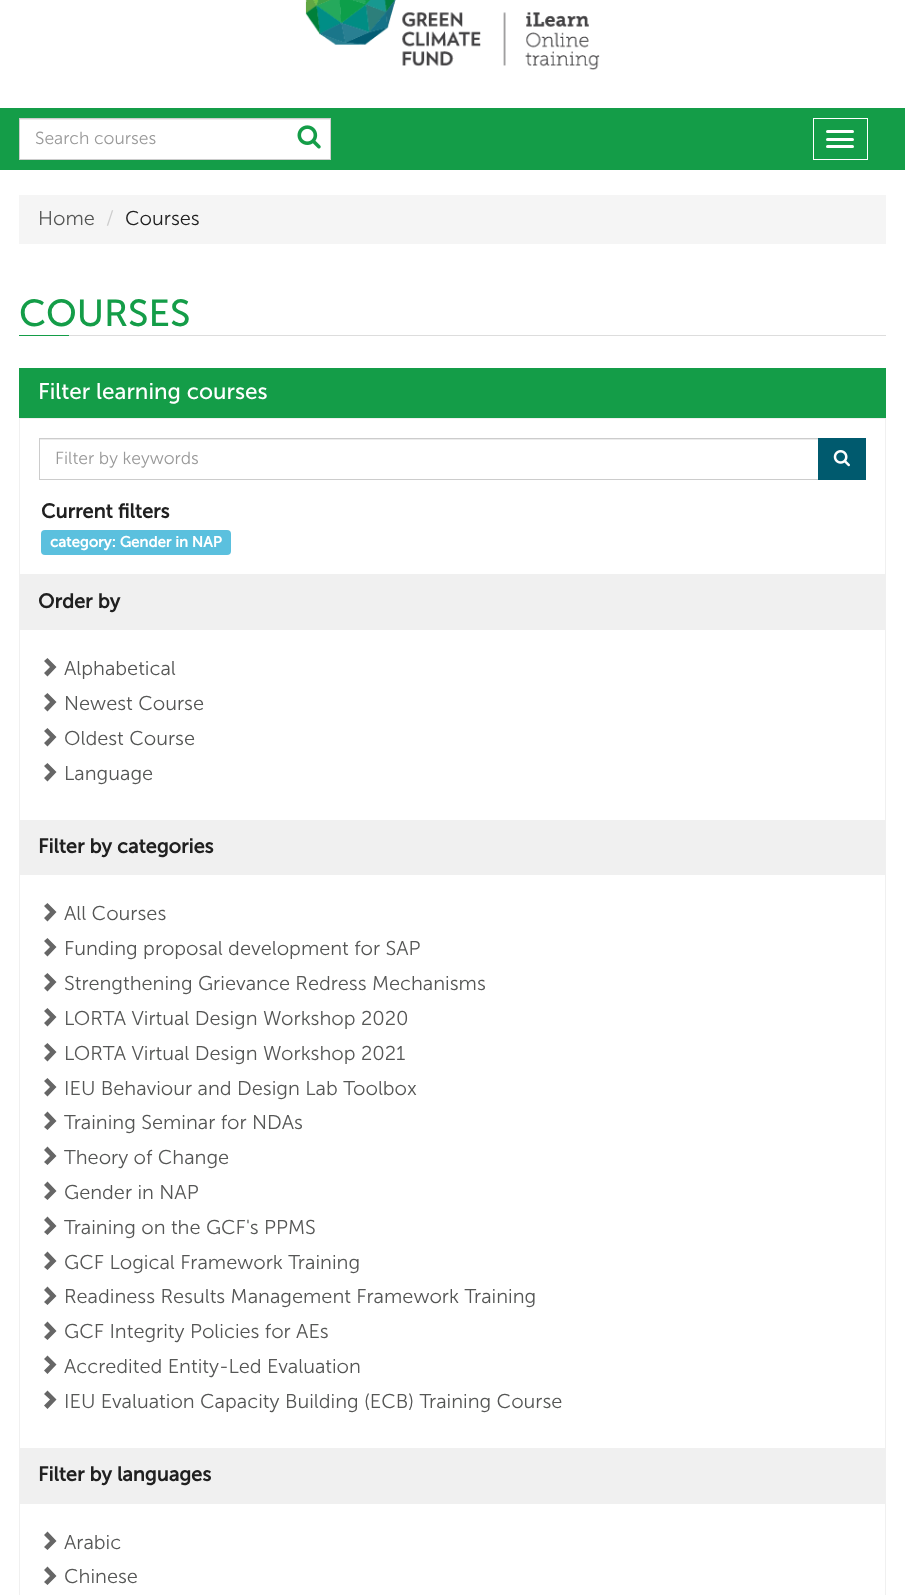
<!DOCTYPE html>
<meta charset="utf-8">
<style>body { margin: 0 } canvas { display: block }</style>
<canvas id="canvas" width="905" height="1595"></canvas>
<img id="img1" src="images/1.png" hidden>
<img id="img2" src="images/2.png" hidden>
<img id="img3" src="images/3.png" hidden>
<script>
window.onload = function () {
    const canvas = document.getElementById('canvas');
    const context = canvas.getContext('2d');
    context.miterLimit = 4;
    context.fontKerning = 'normal';

    context.fillStyle = 'rgb(255, 255, 255)';
    context.fillRect(0, 0, 905, 1595);
    context.drawImage(document.getElementById('img1'), 305, 0, 295, 70);
    context.fillStyle = 'rgb(20, 157, 72)';
    context.fillRect(0, 108, 905, 62);
    context.fillStyle = 'rgb(255, 255, 255)';
    context.fillRect(20, 120, 310, 39);
    context.fillStyle = 'rgb(236, 236, 236)';
    context.fillRect(20, 119, 310, 1);
    context.strokeStyle = 'rgb(204, 204, 204)';
    context.strokeRect(19.5, 118.5, 311, 41);
    context.drawImage(document.getElementById('img2'), 297, 125, 24, 24);
    context.strokeStyle = 'rgb(255, 255, 255)';
    context.strokeRect(813.5, 118.5, 54, 41);
    context.fillStyle = 'rgb(255, 255, 255)';
    context.beginPath();
    context.roundRect(826, 130, 28, 3, 1.5);
    context.fill();
    context.beginPath();
    context.roundRect(826, 138, 28, 3, 1.5);
    context.fill();
    context.beginPath();
    context.roundRect(826, 145, 28, 3, 1.5);
    context.fill();
    context.fillStyle = 'rgb(245, 245, 245)';
    context.fillRect(19, 195, 867, 49);
    context.fillStyle = 'rgb(221, 221, 221)';
    context.fillRect(69, 335, 817, 1);
    context.fillStyle = 'rgb(20, 157, 72)';
    context.fillRect(19, 335, 50, 1);
    context.fillRect(19, 368, 867, 50);
    context.strokeStyle = 'rgb(240, 240, 240)';
    context.strokeRect(19.5, 418.5, 866, 156);
    context.fillStyle = 'rgb(236, 236, 236)';
    context.fillRect(40, 439, 778, 1);
    context.strokeStyle = 'rgb(204, 204, 204)';
    context.strokeRect(39.5, 438.5, 779, 41);
    context.fillStyle = 'rgb(0, 90, 110)';
    context.fillRect(818, 438, 48, 42);
    context.drawImage(document.getElementById('img3'), 833, 450, 17, 17);
    context.fillStyle = 'rgb(91, 192, 222)';
    context.beginPath();
    context.roundRect(41, 530, 182, 25, [4, 0, 0, 4]);
    context.fill();
    context.beginPath();
    context.roundRect(223, 530, 8, 25, [0, 4, 4, 0]);
    context.fill();
    context.fillStyle = 'rgb(240, 240, 240)';
    context.fillRect(19, 575, 867, 54);
    context.strokeStyle = 'rgb(240, 240, 240)';
    context.strokeRect(19.5, 629.5, 866, 191);
    context.fillStyle = 'rgb(102, 102, 102)';
    context.beginPath();
    context.moveTo(56.5, 667);
    context.lineTo(47.5, 676.5);
    context.lineTo(44, 673);
    context.lineTo(50, 667);
    context.lineTo(44, 661);
    context.lineTo(47.5, 658);
    context.closePath();
    context.moveTo(56.5, 702);
    context.lineTo(47.5, 711.5);
    context.lineTo(44, 708);
    context.lineTo(50, 702);
    context.lineTo(44, 696);
    context.lineTo(47.5, 693);
    context.closePath();
    context.fill();
    context.beginPath();
    context.moveTo(56.5, 737);
    context.lineTo(47.5, 746.5);
    context.lineTo(44, 743);
    context.lineTo(50, 737);
    context.lineTo(44, 731);
    context.lineTo(47.5, 728);
    context.closePath();
    context.moveTo(56.5, 772);
    context.lineTo(47.5, 781.5);
    context.lineTo(44, 778);
    context.lineTo(50, 772);
    context.lineTo(44, 766);
    context.lineTo(47.5, 763);
    context.closePath();
    context.fill();
    context.fillStyle = 'rgb(240, 240, 240)';
    context.fillRect(19, 821, 867, 53);
    context.strokeRect(19.5, 874.5, 866, 574);
    context.fillStyle = 'rgb(102, 102, 102)';
    context.beginPath();
    context.moveTo(56.5, 912);
    context.lineTo(47.5, 921.5);
    context.lineTo(44, 918);
    context.lineTo(50, 912);
    context.lineTo(44, 906);
    context.lineTo(47.5, 903);
    context.closePath();
    context.moveTo(56.5, 947);
    context.lineTo(47.5, 956.5);
    context.lineTo(44, 953);
    context.lineTo(50, 947);
    context.lineTo(44, 941);
    context.lineTo(47.5, 938);
    context.closePath();
    context.fill();
    context.beginPath();
    context.moveTo(56.5, 982);
    context.lineTo(47.5, 991.5);
    context.lineTo(44, 988);
    context.lineTo(50, 982);
    context.lineTo(44, 976);
    context.lineTo(47.5, 973);
    context.closePath();
    context.moveTo(56.5, 1017);
    context.lineTo(47.5, 1026.5);
    context.lineTo(44, 1023);
    context.lineTo(50, 1017);
    context.lineTo(44, 1011);
    context.lineTo(47.5, 1008);
    context.closePath();
    context.fill();
    context.beginPath();
    context.moveTo(56.5, 1052);
    context.lineTo(47.5, 1061.5);
    context.lineTo(44, 1058);
    context.lineTo(50, 1052);
    context.lineTo(44, 1046);
    context.lineTo(47.5, 1043);
    context.closePath();
    context.moveTo(56.5, 1087);
    context.lineTo(47.5, 1096.5);
    context.lineTo(44, 1093);
    context.lineTo(50, 1087);
    context.lineTo(44, 1081);
    context.lineTo(47.5, 1078);
    context.closePath();
    context.fill();
    context.beginPath();
    context.moveTo(56.5, 1121);
    context.lineTo(47.5, 1130);
    context.lineTo(44, 1127);
    context.lineTo(50, 1121);
    context.lineTo(44, 1115);
    context.lineTo(47.5, 1111.5);
    context.closePath();
    context.moveTo(56.5, 1156);
    context.lineTo(47.5, 1165);
    context.lineTo(44, 1162);
    context.lineTo(50, 1156);
    context.lineTo(44, 1150);
    context.lineTo(47.5, 1146.5);
    context.closePath();
    context.fill();
    context.beginPath();
    context.moveTo(56.5, 1191);
    context.lineTo(47.5, 1200);
    context.lineTo(44, 1197);
    context.lineTo(50, 1191);
    context.lineTo(44, 1185);
    context.lineTo(47.5, 1181.5);
    context.closePath();
    context.moveTo(56.5, 1226);
    context.lineTo(47.5, 1235);
    context.lineTo(44, 1232);
    context.lineTo(50, 1226);
    context.lineTo(44, 1220);
    context.lineTo(47.5, 1216.5);
    context.closePath();
    context.fill();
    context.beginPath();
    context.moveTo(56.5, 1261);
    context.lineTo(47.5, 1270);
    context.lineTo(44, 1267);
    context.lineTo(50, 1261);
    context.lineTo(44, 1255);
    context.lineTo(47.5, 1251.5);
    context.closePath();
    context.moveTo(56.5, 1296);
    context.lineTo(47.5, 1305);
    context.lineTo(44, 1302);
    context.lineTo(50, 1296);
    context.lineTo(44, 1290);
    context.lineTo(47.5, 1286.5);
    context.closePath();
    context.fill();
    context.beginPath();
    context.moveTo(56.5, 1331);
    context.lineTo(47.5, 1340);
    context.lineTo(44, 1337);
    context.lineTo(50, 1331);
    context.lineTo(44, 1325);
    context.lineTo(47.5, 1321.5);
    context.closePath();
    context.moveTo(56.5, 1364.5);
    context.lineTo(47.5, 1374);
    context.lineTo(44, 1370.5);
    context.lineTo(50, 1364.5);
    context.lineTo(44, 1359);
    context.lineTo(47.5, 1355.5);
    context.closePath();
    context.fill();
    context.beginPath();
    context.moveTo(56.5, 1399.5);
    context.lineTo(47.5, 1409);
    context.lineTo(44, 1405.5);
    context.lineTo(50, 1399.5);
    context.lineTo(44, 1394);
    context.lineTo(47.5, 1390.5);
    context.closePath();
    context.fill();
    context.fillStyle = 'rgb(240, 240, 240)';
    context.fillRect(19, 1449, 867, 54);
    context.strokeRect(19.5, 1503.5, 866, 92);
    context.fillStyle = 'rgb(102, 102, 102)';
    context.beginPath();
    context.moveTo(56.5, 1541);
    context.lineTo(47.5, 1550);
    context.lineTo(44, 1547);
    context.lineTo(50, 1541);
    context.lineTo(44, 1535);
    context.lineTo(47.5, 1531.5);
    context.closePath();
    context.moveTo(56.5, 1576);
    context.lineTo(47.5, 1585);
    context.lineTo(44, 1582);
    context.lineTo(50, 1576);
    context.lineTo(44, 1570);
    context.lineTo(47.5, 1566.5);
    context.closePath();
    context.fill();
    context.font = '300 17.5px "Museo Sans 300"';
    context.fillStyle = 'rgb(153, 153, 153)';
    context.fillText('Search courses', 35, 144);
    context.font = '300 20px "Museo Sans 300"';
    context.fillStyle = 'rgb(85, 86, 85)';
    context.fillText('Home', 38, 225);
    context.fillStyle = 'rgb(204, 204, 204)';
    context.fillText('/', 106, 225);
    context.fillStyle = 'rgb(32, 32, 32)';
    context.fillText('Courses', 125, 225);
    context.font = '37.5px "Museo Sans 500"';
    context.fillStyle = 'rgb(20, 157, 72)';
    context.fillText('COURSES', 19, 326);
    context.font = '22.5px "Museo Sans 500"';
    context.fillStyle = 'rgb(255, 255, 255)';
    context.fillText('Filter learning courses', 38, 399);
    context.font = '300 17.5px "Museo Sans 300"';
    context.fillStyle = 'rgb(153, 153, 153)';
    context.fillText('Filter by keywords', 55, 464);
    context.font = 'bold 20px "Museo Sans 500"';
    context.fillStyle = 'rgb(32, 32, 32)';
    context.fillText('Current filters', 41, 518);
    context.font = 'bold 15px "Museo Sans 500"';
    context.fillStyle = 'rgb(255, 255, 255)';
    context.fillText('category: Gender in NAP', 50, 547);
    context.font = 'bold 20px "Museo Sans 500"';
    context.fillStyle = 'rgb(32, 32, 32)';
    context.fillText('Order by', 38, 608);
    context.font = '300 20px "Museo Sans 300"';
    context.fillStyle = 'rgb(85, 86, 85)';
    context.fillText('Alphabetical', 64, 675);
    context.fillText('Newest Course', 64, 710);
    context.fillText('Oldest Course', 64, 745);
    context.fillText('Language', 64, 780);
    context.font = 'bold 20px "Museo Sans 500"';
    context.fillStyle = 'rgb(32, 32, 32)';
    context.fillText('Filter by categories', 38, 853);
    context.font = '300 20px "Museo Sans 300"';
    context.fillStyle = 'rgb(85, 86, 85)';
    context.fillText('All Courses', 64, 920);
    context.fillText('Funding proposal development for SAP', 64, 955);
    context.fillText('Strengthening Grievance Redress Mechanisms', 64, 990);
    context.fillText('LORTA Virtual Design Workshop 2020', 64, 1025);
    context.fillText('LORTA Virtual Design Workshop 2021', 64, 1060);
    context.fillText('IEU Behaviour and Design Lab Toolbox', 64, 1095);
    context.fillText('Training Seminar for NDAs', 64, 1129);
    context.fillText('Theory of Change', 64, 1164);
    context.fillText('Gender in NAP', 64, 1199);
    context.fillText('Training on the GCF\'s PPMS', 64, 1234);
    context.fillText('GCF Logical Framework Training', 64, 1269);
    context.fillText('Readiness Results Management Framework Training', 64, 1303);
    context.fillText('GCF Integrity Policies for AEs', 64, 1338);
    context.fillText('Accredited Entity-Led Evaluation', 64, 1373);
    context.fillText('IEU Evaluation Capacity Building (ECB) Training Course', 64, 1408);
    context.font = 'bold 20px "Museo Sans 500"';
    context.fillStyle = 'rgb(32, 32, 32)';
    context.fillText('Filter by languages', 38, 1481);
    context.font = '300 20px "Museo Sans 300"';
    context.fillStyle = 'rgb(85, 86, 85)';
    context.fillText('Arabic', 64, 1549);
    context.fillText('Chinese', 64, 1583);
};
</script>
